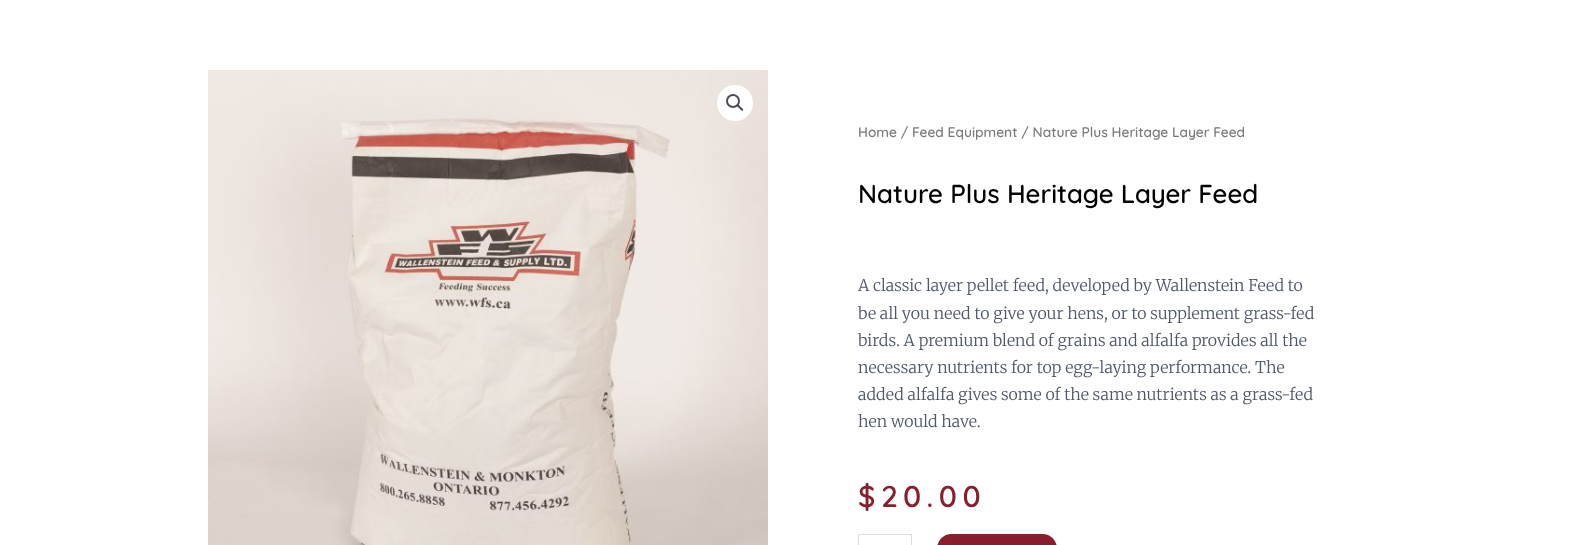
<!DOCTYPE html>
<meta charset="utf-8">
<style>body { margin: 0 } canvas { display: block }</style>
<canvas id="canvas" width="1576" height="545"></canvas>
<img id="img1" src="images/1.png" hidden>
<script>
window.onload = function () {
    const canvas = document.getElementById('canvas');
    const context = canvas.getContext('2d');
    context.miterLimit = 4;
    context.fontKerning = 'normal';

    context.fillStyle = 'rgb(255, 255, 255)';
    context.fillRect(0, 0, 1576, 545);
    context.drawImage(document.getElementById('img1'), 208, 70, 560, 475);
    context.beginPath();
    context.arc(735, 103, 18, 0, 2 * Math.PI);
    context.fill();
    context.beginPath();
    context.arc(733, 101, 6, 0, 2 * Math.PI);
    context.strokeStyle = 'rgb(75, 79, 88)';
    context.lineWidth = 2;
    context.stroke();
    context.fillStyle = 'rgb(75, 79, 88)';
    context.beginPath();
    context.moveTo(737, 105);
    context.bezierCurveTo(738.5, 103.5, 740, 106.5, 740.5, 107);
    context.bezierCurveTo(741.5, 107.5, 744, 109.5, 743, 110.5);
    context.bezierCurveTo(741.5, 111.5, 740, 109, 739.5, 108.5);
    context.bezierCurveTo(738.5, 107.5, 736, 106, 737, 105);
    context.closePath();
    context.fill();
    context.strokeStyle = 'rgb(221, 221, 221)';
    context.lineWidth = 1;
    context.strokeRect(858.5, 534.5, 53, 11);
    context.fillStyle = 'rgb(136, 31, 47)';
    context.beginPath();
    context.roundRect(937, 534, 120, 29, 17.5);
    context.fill();
    context.font = '500 13.8px Quicksand';
    context.fillStyle = 'rgb(122, 122, 122)';
    context.fillText('Home / Feed Equipment / Nature Plus Heritage Layer Feed', 858, 137);
    context.font = '500 26px Quicksand';
    context.fillStyle = 'rgb(0, 0, 0)';
    context.fillText('Nature Plus Heritage Layer Feed', 858, 203);
    context.font = '300 16px Merriweather';
    context.fillStyle = 'rgb(78, 87, 104)';
    context.fillText('A classic layer pellet feed, developed by Wallenstein Feed to', 858, 291);
    context.fillText('be all you need to give your hens, or to supplement grass-fed', 858, 319);
    context.fillText('birds. A premium blend of grains and alfalfa provides all the', 858, 346);
    context.fillText('necessary nutrients for top egg-laying performance. The', 858, 373);
    context.fillText('added alfalfa gives some of the same nutrients as a grass-fed', 858, 400);
    context.fillText('hen would have.', 858, 427);
    context.letterSpacing = '5.5px';
    context.font = '500 30px Quicksand';
    context.fillStyle = 'rgb(136, 31, 47)';
    context.fillText('$20.00', 858, 507);
};
</script>
